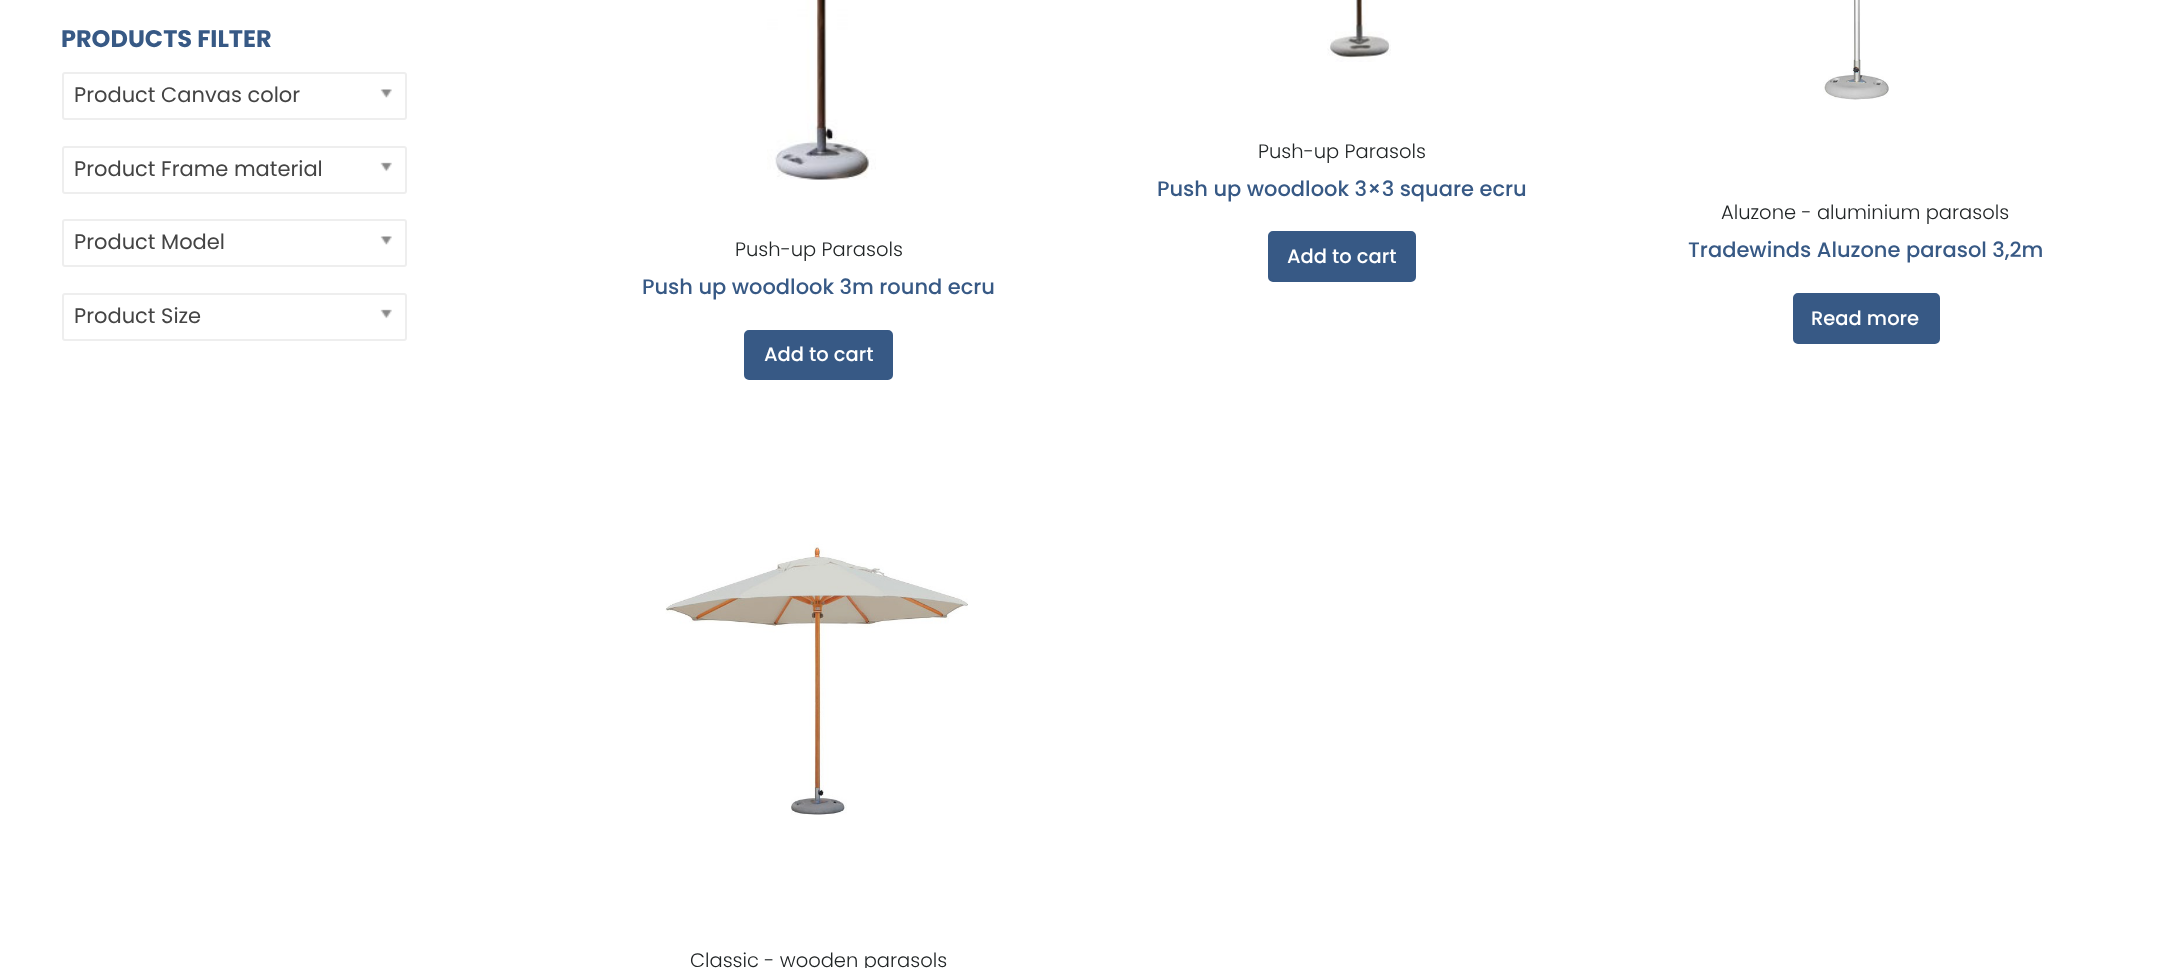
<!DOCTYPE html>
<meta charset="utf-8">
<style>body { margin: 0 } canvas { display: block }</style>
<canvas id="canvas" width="2161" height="968"></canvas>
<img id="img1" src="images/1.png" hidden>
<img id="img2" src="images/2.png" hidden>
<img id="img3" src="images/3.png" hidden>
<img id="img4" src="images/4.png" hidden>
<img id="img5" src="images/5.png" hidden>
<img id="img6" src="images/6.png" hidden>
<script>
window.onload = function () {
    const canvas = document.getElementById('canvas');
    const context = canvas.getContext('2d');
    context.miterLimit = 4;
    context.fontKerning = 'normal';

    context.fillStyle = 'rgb(255, 255, 255)';
    context.fillRect(0, 0, 2161, 968);
    context.beginPath();
    context.roundRect(63, 73, 343, 46, 2);
    context.strokeStyle = 'rgb(238, 238, 238)';
    context.lineWidth = 2;
    context.stroke();
    context.drawImage(document.getElementById('img1'), 380, 89, 12, 9);
    context.beginPath();
    context.roundRect(63, 147, 343, 46, 2);
    context.stroke();
    context.drawImage(document.getElementById('img2'), 380, 162, 12, 10);
    context.beginPath();
    context.roundRect(63, 220, 343, 46, 2);
    context.stroke();
    context.drawImage(document.getElementById('img1'), 380, 236, 12, 9);
    context.beginPath();
    context.roundRect(63, 294, 343, 46, 2);
    context.stroke();
    context.drawImage(document.getElementById('img2'), 380, 309, 12, 10);
    context.drawImage(document.getElementById('img3'), 767, 0, 109, 180);
    context.fillStyle = 'rgb(55, 89, 133)';
    context.beginPath();
    context.roundRect(745, 331, 147, 48, 4);
    context.fill();
    context.strokeStyle = 'rgb(55, 89, 133)';
    context.stroke();
    context.drawImage(document.getElementById('img4'), 1327, 0, 64, 62);
    context.beginPath();
    context.roundRect(1269, 232, 146, 49, 4);
    context.fill();
    context.stroke();
    context.drawImage(document.getElementById('img5'), 1823, 0, 66, 100);
    context.beginPath();
    context.roundRect(1794, 294, 145, 49, 4);
    context.fill();
    context.stroke();
    context.drawImage(document.getElementById('img6'), 665, 542, 303, 273);
    context.font = 'bold 24px Poppins';
    context.fillText('PRODUCTS FILTER', 61, 47);
    context.font = '21px Poppins';
    context.fillStyle = 'rgb(68, 68, 68)';
    context.fillText('Product Canvas color', 74, 102);
    context.fillText('Product Frame material', 74, 176);
    context.fillText('Product Model', 74, 249);
    context.fillText('Product Size', 74, 323);
    context.font = '300 19.5px Poppins';
    context.fillStyle = 'rgb(33, 37, 38)';
    context.fillText('Push-up Parasols', 735, 256);
    context.font = '500 21px Poppins';
    context.fillStyle = 'rgb(55, 89, 133)';
    context.fillText('Push up woodlook 3m round ecru', 642, 294);
    context.font = '500 19.5px Poppins';
    context.fillStyle = 'rgb(255, 255, 255)';
    context.fillText('Add to cart', 764, 361);
    context.font = '300 19.5px Poppins';
    context.fillStyle = 'rgb(33, 37, 38)';
    context.fillText('Push-up Parasols', 1258, 158);
    context.font = '500 21px Poppins';
    context.fillStyle = 'rgb(55, 89, 133)';
    context.fillText('Push up woodlook 3×3 square ecru', 1157, 196);
    context.font = '500 19.5px Poppins';
    context.fillStyle = 'rgb(255, 255, 255)';
    context.fillText('Add to cart', 1287, 263);
    context.font = '300 19.5px Poppins';
    context.fillStyle = 'rgb(33, 37, 38)';
    context.fillText('Aluzone - aluminium parasols', 1721, 219);
    context.font = '500 21px Poppins';
    context.fillStyle = 'rgb(55, 89, 133)';
    context.fillText('Tradewinds Aluzone parasol 3,2m', 1688, 257);
    context.font = '500 19.5px Poppins';
    context.fillStyle = 'rgb(255, 255, 255)';
    context.fillText('Read more', 1811, 325);
    context.font = '300 19.5px Poppins';
    context.fillStyle = 'rgb(33, 37, 38)';
    context.fillText('Classic - wooden parasols', 690, 967);
};
</script>
